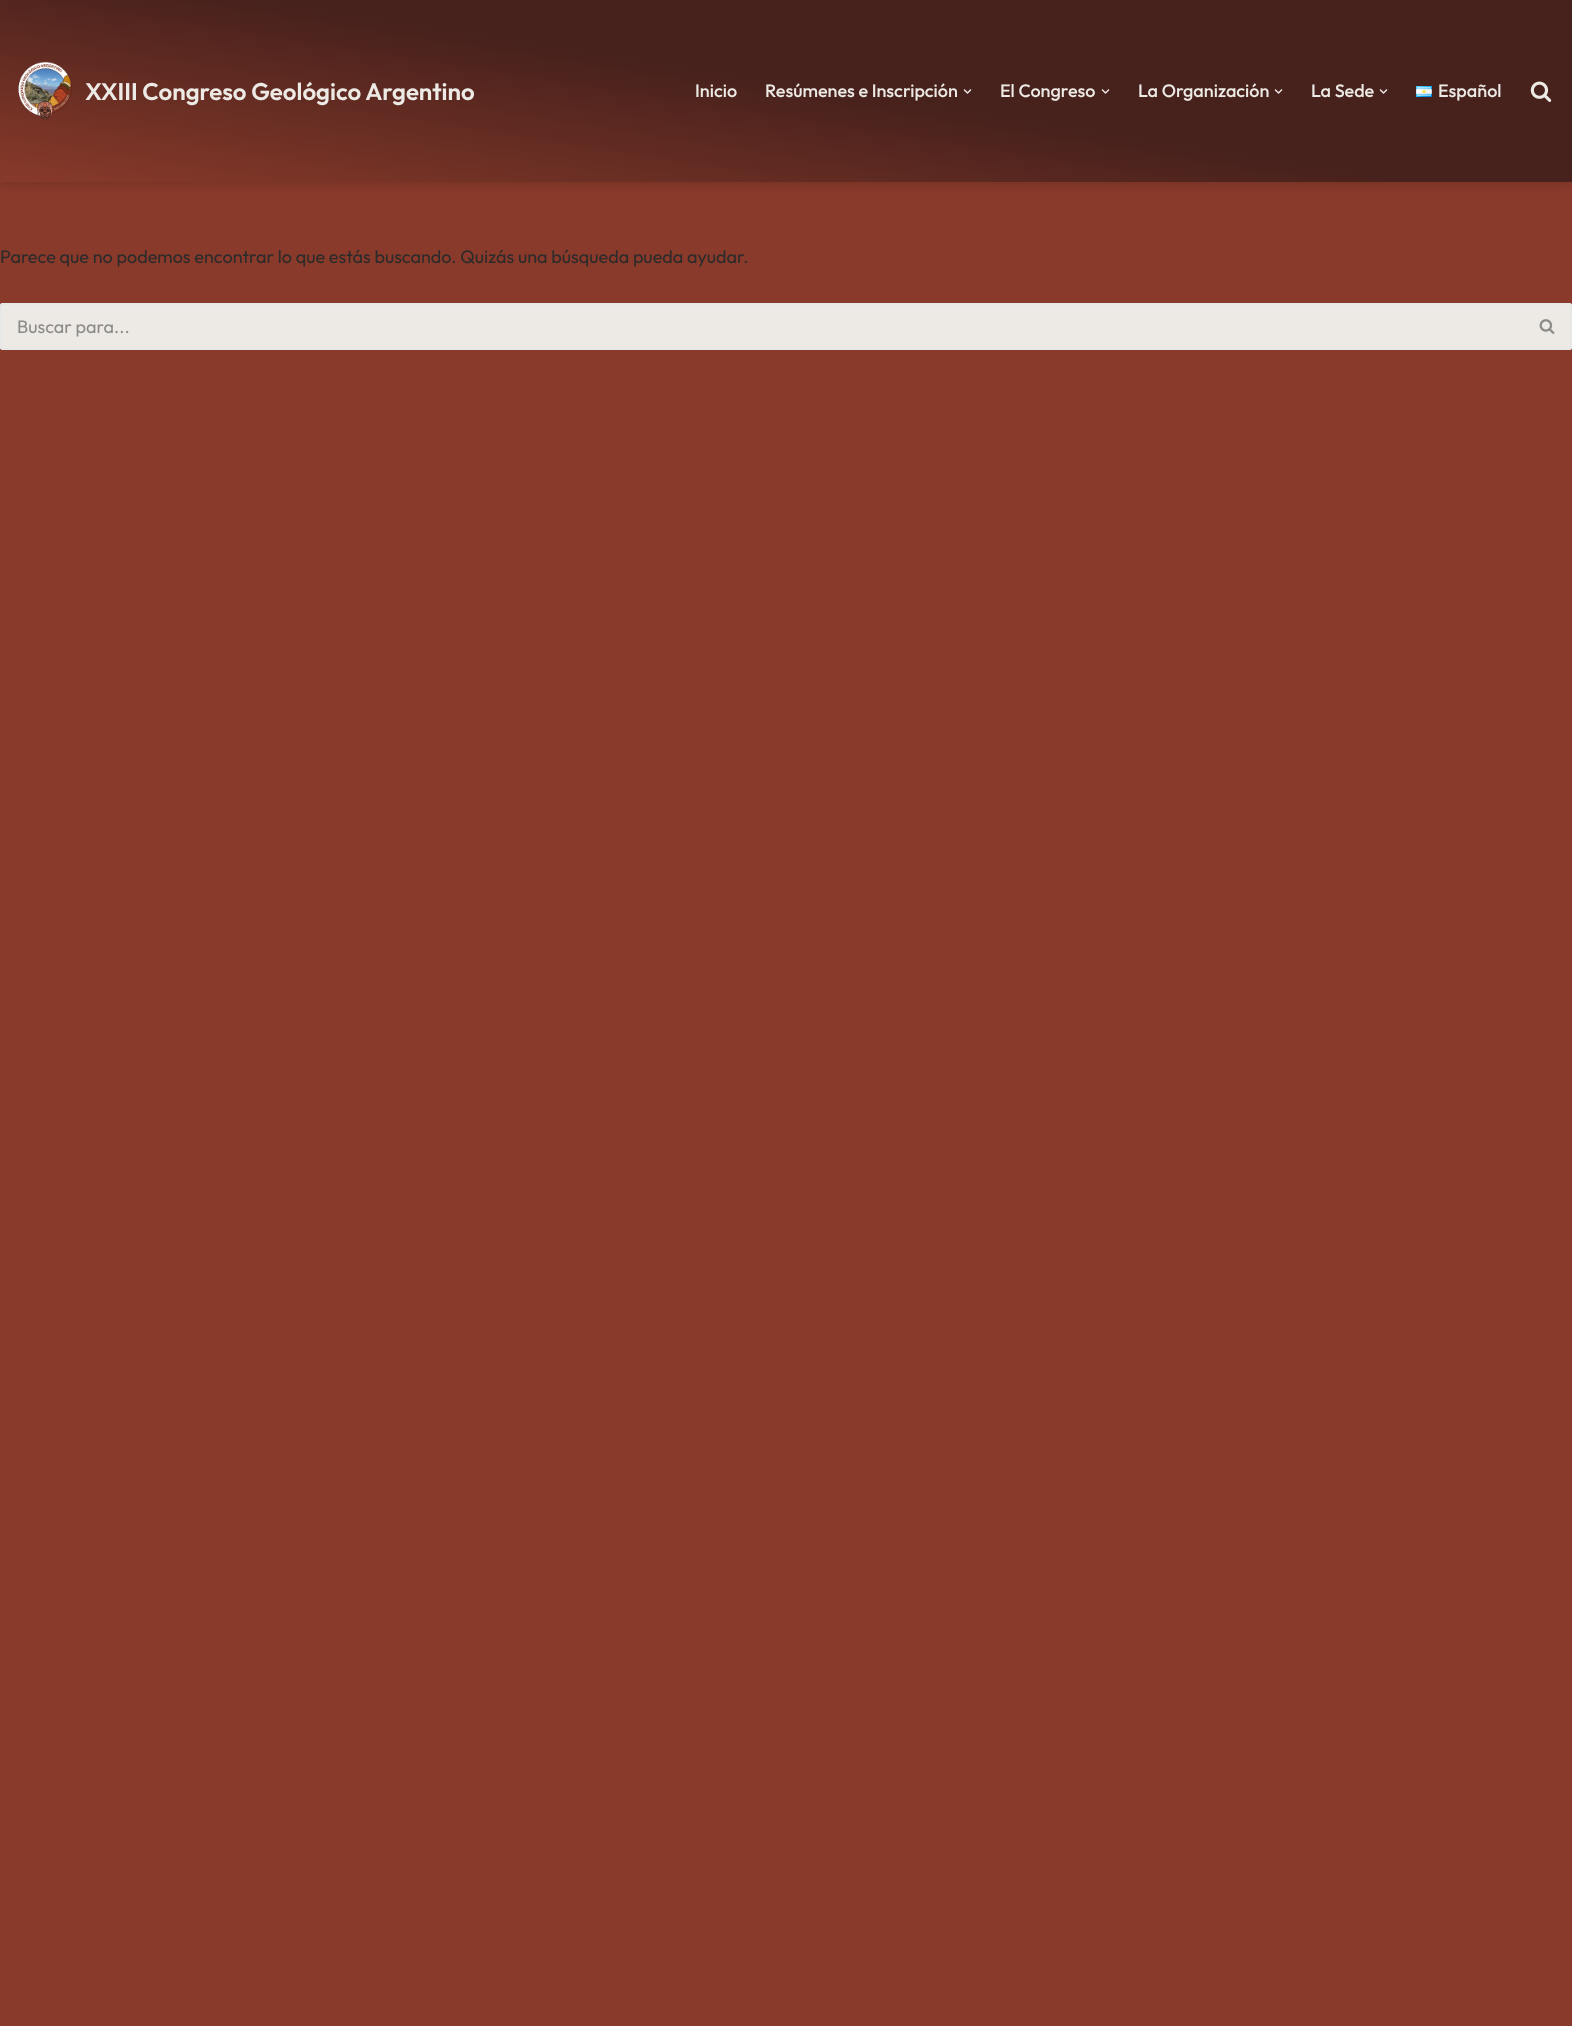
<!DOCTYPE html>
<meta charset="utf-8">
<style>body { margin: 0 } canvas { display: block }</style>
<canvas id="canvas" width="1572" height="2026"></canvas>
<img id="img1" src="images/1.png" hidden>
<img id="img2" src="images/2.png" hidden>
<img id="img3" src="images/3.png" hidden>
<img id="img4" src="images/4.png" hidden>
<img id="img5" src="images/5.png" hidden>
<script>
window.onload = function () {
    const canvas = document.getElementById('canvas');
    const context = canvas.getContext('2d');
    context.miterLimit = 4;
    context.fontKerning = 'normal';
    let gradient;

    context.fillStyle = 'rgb(137, 58, 42)';
    context.fillRect(0, 0, 1572, 2026);
    context.fillStyle = 'rgba(0, 0, 0, 0.15)';
    context.filter = 'blur(4px)';
    context.beginPath();
    context.rect(0, 2, 1572, 182);
    context.fill();
    context.filter = 'none';
    gradient = context.createLinearGradient(753, 301, 819, -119);
    gradient.addColorStop(0, 'rgb(137, 58, 42)');
    gradient.addColorStop(0.52, 'rgb(71, 33, 28)');
    context.fillStyle = gradient;
    context.fillRect(0, 0, 1572, 182);
    context.drawImage(document.getElementById('img1'), 18, 61, 54, 59);
    context.drawImage(document.getElementById('img2'), 963, 89, 9, 5);
    context.drawImage(document.getElementById('img2'), 1101, 89, 9, 5);
    context.drawImage(document.getElementById('img2'), 1274, 89, 9, 5);
    context.drawImage(document.getElementById('img2'), 1379, 89, 9, 5);
    context.drawImage(document.getElementById('img3'), 1416, 86, 16, 11);
    context.drawImage(document.getElementById('img4'), 1530, 81, 22, 21);
    context.fillStyle = 'rgb(237, 234, 229)';
    context.beginPath();
    context.roundRect(0, 303, 1524, 47, [3, 0, 0, 3]);
    context.fill();
    context.fillStyle = 'rgb(231, 231, 231)';
    context.beginPath();
    context.moveTo(3, 303);
    context.lineTo(1524, 303);
    context.lineTo(1524, 350);
    context.lineTo(3, 350);
    context.bezierCurveTo(1, 350, 0, 349, 0, 347);
    context.lineTo(0, 306);
    context.bezierCurveTo(0, 304, 1, 303, 3, 303);
    context.closePath();
    context.moveTo(3, 305);
    context.lineTo(1524, 305);
    context.lineTo(1524, 348);
    context.lineTo(3, 348);
    context.lineTo(2, 347);
    context.lineTo(2, 306);
    context.closePath();
    context.fill('evenodd');
    context.fillStyle = 'rgb(237, 234, 229)';
    context.beginPath();
    context.roundRect(1524, 303, 48, 47, [0, 3, 3, 0]);
    context.fill();
    context.fillStyle = 'rgb(231, 231, 231)';
    context.beginPath();
    context.moveTo(1524, 303);
    context.lineTo(1569, 303);
    context.bezierCurveTo(1571, 303, 1572, 304, 1572, 306);
    context.lineTo(1572, 347);
    context.bezierCurveTo(1572, 349, 1571, 350, 1569, 350);
    context.lineTo(1524, 350);
    context.closePath();
    context.moveTo(1524, 305);
    context.lineTo(1569, 305);
    context.bezierCurveTo(1570, 305, 1570, 305, 1570, 306);
    context.lineTo(1570, 347);
    context.bezierCurveTo(1570, 348, 1570, 348, 1569, 348);
    context.lineTo(1524, 348);
    context.closePath();
    context.fill('evenodd');
    context.drawImage(document.getElementById('img5'), 1539, 319, 16, 15);
    context.font = '600 24px Outfit';
    context.fillStyle = 'rgb(237, 234, 229)';
    context.fillText('XXIII Congreso Geológico Argentino', 85, 100);
    context.font = '500 18px Outfit';
    context.fillText('Inicio', 695, 97);
    context.fillText('Resúmenes e Inscripción', 765, 97);
    context.fillText('El Congreso', 1000, 97);
    context.fillText('La Organización', 1138, 97);
    context.fillText('La Sede', 1311, 97);
    context.fillText('Español', 1438, 97);
    context.font = '18px Outfit';
    context.fillStyle = 'rgb(43, 43, 43)';
    context.fillText('Parece que no podemos encontrar lo que estás buscando. Quizás una búsqueda pueda ayudar.', 0, 263);
    context.fillStyle = 'rgb(140, 139, 136)';
    context.fillText('Buscar para...', 17, 333);
};
</script>
